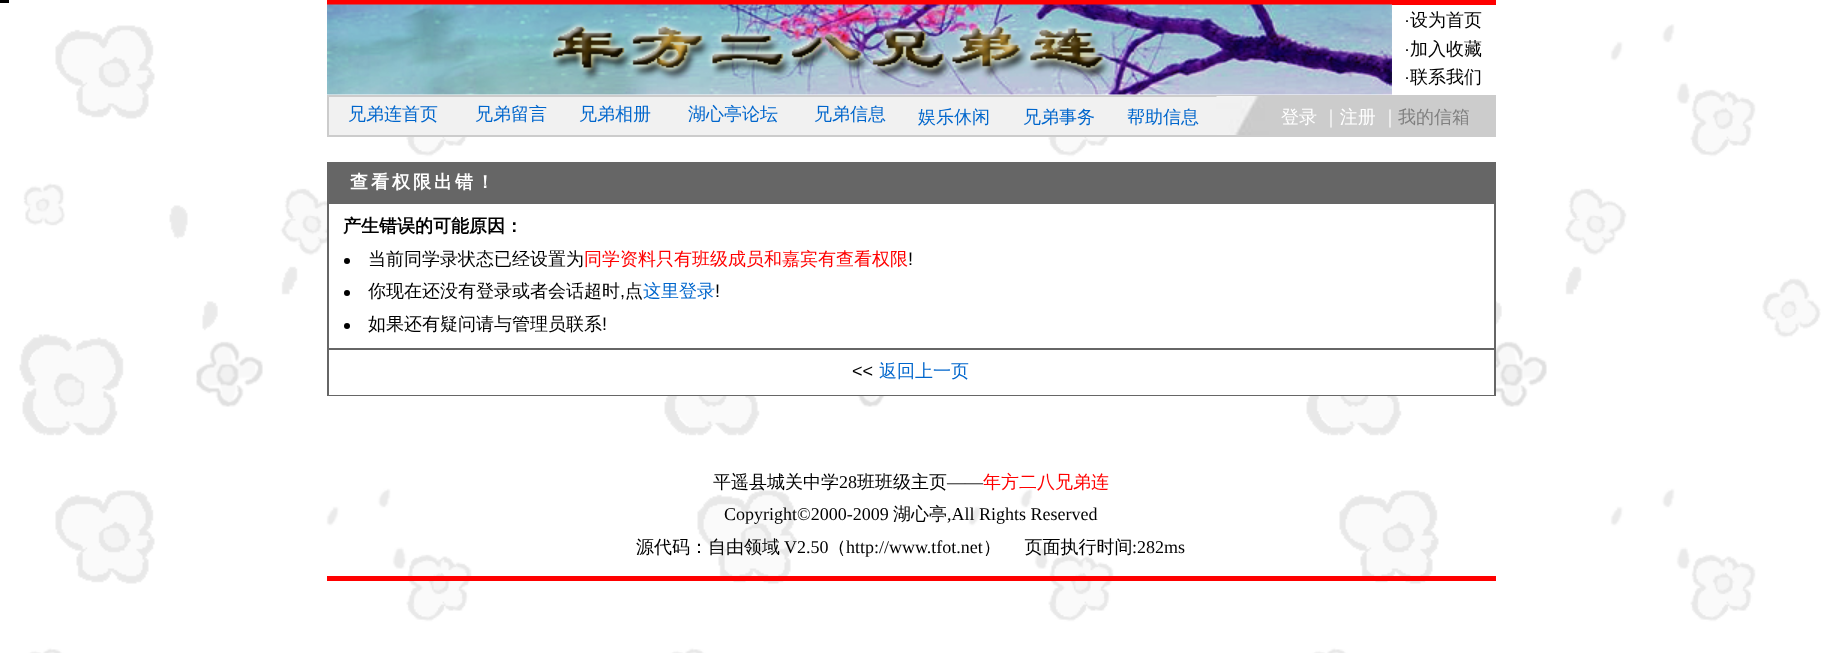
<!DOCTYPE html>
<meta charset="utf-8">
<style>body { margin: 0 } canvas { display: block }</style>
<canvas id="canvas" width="1821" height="653"></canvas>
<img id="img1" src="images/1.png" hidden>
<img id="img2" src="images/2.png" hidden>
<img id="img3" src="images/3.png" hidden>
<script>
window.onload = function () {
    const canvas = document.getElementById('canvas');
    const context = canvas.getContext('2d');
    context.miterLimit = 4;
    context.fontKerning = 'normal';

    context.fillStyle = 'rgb(255, 255, 255)';
    context.fillRect(0, 0, 1821, 653);
    context.drawImage(document.getElementById('img1'), 19, 24, 1802, 629);
    context.fillStyle = 'rgb(0, 0, 0)';
    context.fillRect(0, 0, 9, 3);
    context.fillStyle = 'rgb(255, 255, 255)';
    context.fillRect(327, 24, 1112, 71);
    context.fillStyle = 'rgb(255, 0, 0)';
    context.fillRect(327, 0, 1169, 5);
    context.drawImage(document.getElementById('img2'), 327, 4, 1065, 91);
    context.fillStyle = 'rgb(241, 241, 241)';
    context.fillRect(329, 97, 888, 38);
    context.strokeStyle = 'rgb(204, 204, 204)';
    context.lineWidth = 2;
    context.strokeRect(328, 96, 1167, 40);
    context.drawImage(document.getElementById('img3'), 1216, 96, 53, 39);
    context.fillStyle = 'rgb(204, 204, 204)';
    context.fillRect(1269, 97, 225, 38);
    context.fillStyle = 'rgb(102, 102, 102)';
    context.fillRect(327, 162, 1169, 234);
    context.fillStyle = 'rgb(255, 255, 255)';
    context.fillRect(329, 204, 1165, 144);
    context.fillStyle = 'rgb(0, 0, 0)';
    context.beginPath();
    context.arc(347, 261, 3, 0, 2 * Math.PI);
    context.fill();
    context.beginPath();
    context.arc(347, 293, 3, 0, 2 * Math.PI);
    context.fill();
    context.beginPath();
    context.arc(347, 326, 3, 0, 2 * Math.PI);
    context.fill();
    context.fillStyle = 'rgb(255, 255, 255)';
    context.fillRect(329, 350, 1165, 45);
    context.fillStyle = 'rgb(255, 0, 0)';
    context.fillRect(327, 576, 1169, 5);
    context.font = '18px Liberation Sans';
    context.fillStyle = 'rgb(0, 0, 0)';
    context.fillText('·', 1404, 26);
    context.font = '500 18px WenQuanYi Zen Hei';
    context.fillText('设为首页', 1410, 26);
    context.font = '18px Liberation Sans';
    context.fillText('·', 1404, 55);
    context.font = '500 18px WenQuanYi Zen Hei';
    context.fillText('加入收藏', 1410, 55);
    context.font = '18px Liberation Sans';
    context.fillText('·', 1404, 83);
    context.font = '500 18px WenQuanYi Zen Hei';
    context.fillText('联系我们', 1410, 83);
    context.fillStyle = 'rgb(0, 102, 204)';
    context.fillText('兄弟连首页', 348, 120);
    context.fillText('兄弟留言', 475, 120);
    context.fillText('兄弟相册', 579, 120);
    context.fillText('湖心亭论坛', 688, 120);
    context.fillText('兄弟信息', 814, 120);
    context.fillText('娱乐休闲', 918, 123);
    context.fillText('兄弟事务', 1023, 123);
    context.fillText('帮助信息', 1127, 123);
    context.fillStyle = 'rgb(255, 255, 255)';
    context.fillText('登录', 1281, 123);
    context.fillText('｜注册', 1322, 123);
    context.fillText('｜', 1381, 123);
    context.fillStyle = 'rgb(128, 128, 128)';
    context.fillText('我的信箱', 1398, 123);
    context.letterSpacing = '3px';
    context.font = 'bold 18px WenQuanYi Zen Hei';
    context.fillStyle = 'rgb(255, 255, 255)';
    context.fillText('查看权限出错！', 350, 188);
    context.letterSpacing = '0px';
    context.fillStyle = 'rgb(0, 0, 0)';
    context.fillText('产生错误的可能原因：', 343, 232);
    context.font = '500 18px WenQuanYi Zen Hei';
    context.fillText('当前同学录状态已经设置为', 368, 265);
    context.fillStyle = 'rgb(255, 0, 0)';
    context.fillText('同学资料只有班级成员和嘉宾有查看权限', 584, 265);
    context.font = '18px Liberation Sans';
    context.fillStyle = 'rgb(0, 0, 0)';
    context.fillText('!', 908, 265);
    context.font = '500 18px WenQuanYi Zen Hei';
    context.fillText('你现在还没有登录或者会话超时', 368, 297);
    context.fillText('点', 625, 297);
    context.fillStyle = 'rgb(0, 102, 204)';
    context.fillText('这里登录', 643, 297);
    context.font = '18px Liberation Sans';
    context.fillStyle = 'rgb(0, 0, 0)';
    context.fillText('!', 715, 297);
    context.fillText(',', 620, 297);
    context.font = '500 18px WenQuanYi Zen Hei';
    context.fillText('如果还有疑问请与管理员联系', 368, 330);
    context.font = '18px Liberation Sans';
    context.fillText('!', 602, 330);
    context.fillText('<<', 852, 377);
    context.font = '500 18px WenQuanYi Zen Hei';
    context.fillStyle = 'rgb(0, 102, 204)';
    context.fillText('返回上一页', 879, 377);
    context.fillStyle = 'rgb(0, 0, 0)';
    context.fillText('平遥县城关中学', 713, 488);
    context.font = '18px Liberation Serif';
    context.fillText('28', 839, 488);
    context.font = '500 18px WenQuanYi Zen Hei';
    context.fillText('班班级主页', 857, 488);
    context.font = '18px Liberation Serif';
    context.fillText('——', 947, 488);
    context.font = '500 18px WenQuanYi Zen Hei';
    context.fillStyle = 'rgb(255, 0, 0)';
    context.fillText('年方二八兄弟连', 983, 488);
    context.font = '18px Liberation Serif';
    context.fillStyle = 'rgb(0, 0, 0)';
    context.fillText('Copyright©2000-2009', 724, 520);
    context.font = '500 18px WenQuanYi Zen Hei';
    context.fillText('湖心亭', 893, 520);
    context.font = '18px Liberation Serif';
    context.fillText(',All Rights Reserved', 947, 520);
    context.font = '500 18px WenQuanYi Zen Hei';
    context.fillText('源代码：自由领域', 636, 553);
    context.font = '18px Liberation Serif';
    context.fillText('V2.50', 784, 553);
    context.font = '500 18px WenQuanYi Zen Hei';
    context.fillText('（', 828, 553);
    context.font = '18px Liberation Serif';
    context.fillText('http://www.tfot.net', 846, 553);
    context.font = '500 18px WenQuanYi Zen Hei';
    context.fillText('） 　页面执行时间', 983, 553);
    context.font = '18px Liberation Serif';
    context.fillText(':282ms', 1132, 553);
};
</script>
